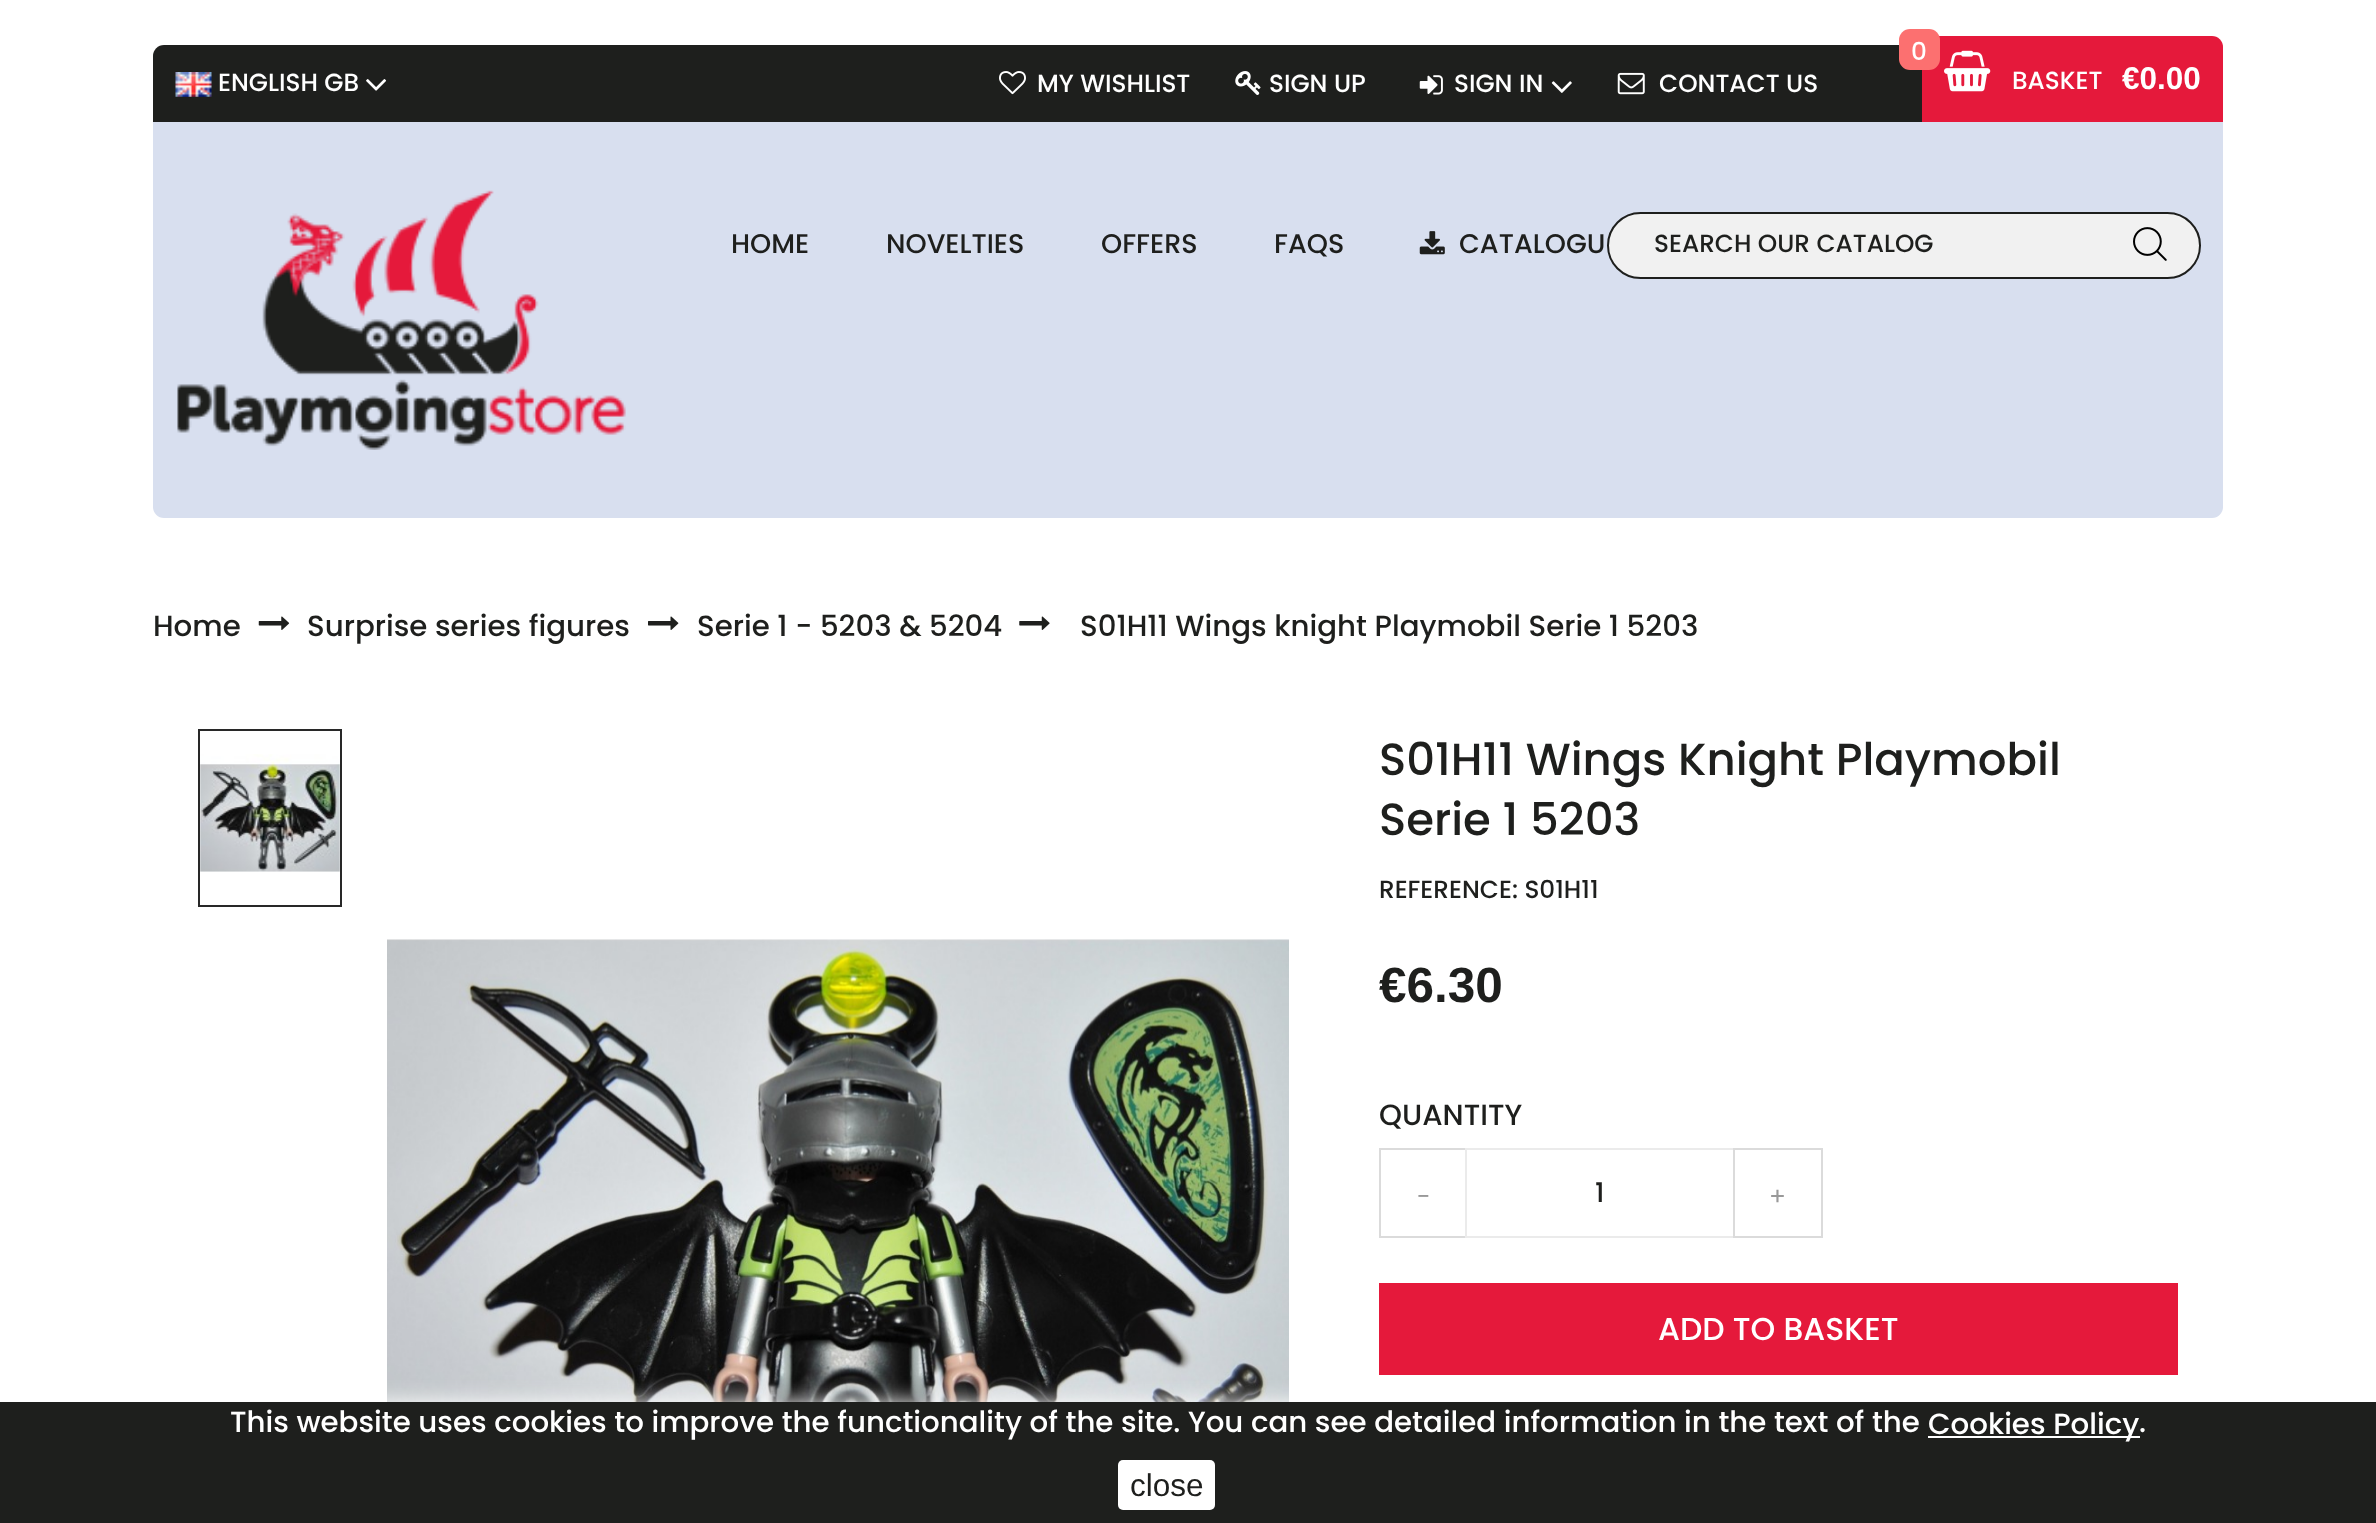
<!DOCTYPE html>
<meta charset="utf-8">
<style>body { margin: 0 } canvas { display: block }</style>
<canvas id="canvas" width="2376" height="1523"></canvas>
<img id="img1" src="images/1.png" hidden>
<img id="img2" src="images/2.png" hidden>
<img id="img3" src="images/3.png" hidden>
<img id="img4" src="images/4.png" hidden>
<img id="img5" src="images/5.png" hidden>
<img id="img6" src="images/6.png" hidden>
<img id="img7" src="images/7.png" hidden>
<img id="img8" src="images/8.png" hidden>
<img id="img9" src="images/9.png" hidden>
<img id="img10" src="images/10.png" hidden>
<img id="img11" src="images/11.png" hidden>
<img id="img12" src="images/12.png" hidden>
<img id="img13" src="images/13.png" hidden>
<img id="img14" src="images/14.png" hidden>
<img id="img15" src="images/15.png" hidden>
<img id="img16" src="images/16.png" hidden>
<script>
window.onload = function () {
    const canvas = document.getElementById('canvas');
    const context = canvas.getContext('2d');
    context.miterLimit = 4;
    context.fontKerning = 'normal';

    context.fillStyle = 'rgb(255, 255, 255)';
    context.fillRect(0, 0, 2376, 1523);
    context.fillStyle = 'rgb(216, 223, 239)';
    context.beginPath();
    context.roundRect(153, 122, 2070, 396, [0, 0, 11, 11]);
    context.fill();
    context.fillStyle = 'rgb(30, 31, 29)';
    context.beginPath();
    context.roundRect(153, 45, 2070, 77, [11, 11, 0, 0]);
    context.fill();
    context.fillStyle = 'rgb(229, 25, 59)';
    context.beginPath();
    context.roundRect(1922, 36, 301, 86, [0, 11, 0, 0]);
    context.fill();
    context.fillStyle = 'rgb(252, 112, 112)';
    context.beginPath();
    context.roundRect(1899, 29, 41, 41, 11);
    context.fill();
    context.drawImage(document.getElementById('img1'), 1944, 50, 47, 42);
    context.drawImage(document.getElementById('img2'), 1419, 231, 26, 24);
    context.fillStyle = 'rgb(241, 241, 241)';
    context.beginPath();
    context.roundRect(1608, 213, 592, 65, 32.5);
    context.fill();
    context.strokeStyle = 'rgb(30, 31, 29)';
    context.lineWidth = 2;
    context.stroke();
    context.drawImage(document.getElementById('img3'), 2133, 227, 34, 34);
    context.drawImage(document.getElementById('img4'), 177, 190, 449, 260);
    context.drawImage(document.getElementById('img5'), 175, 72, 37, 25);
    context.drawImage(document.getElementById('img6'), 366, 79, 21, 12);
    context.drawImage(document.getElementById('img7'), 999, 71, 27, 24);
    context.drawImage(document.getElementById('img8'), 1235, 71, 26, 24);
    context.drawImage(document.getElementById('img9'), 1419, 75, 24, 20);
    context.drawImage(document.getElementById('img10'), 1551, 81, 21, 12);
    context.drawImage(document.getElementById('img11'), 1617, 72, 28, 23);
    context.drawImage(document.getElementById('img12'), 258, 616, 32, 14);
    context.drawImage(document.getElementById('img13'), 648, 616, 31, 14);
    context.drawImage(document.getElementById('img14'), 1019, 616, 31, 14);
    context.strokeStyle = 'rgb(40, 40, 40)';
    context.strokeRect(199, 730, 142, 176);
    context.drawImage(document.getElementById('img15'), 200, 754, 140, 118);
    context.drawImage(document.getElementById('img16'), 387, 939, 902, 463);
    context.strokeStyle = 'rgb(219, 219, 219)';
    context.strokeRect(1380, 1149, 88, 88);
    context.fillStyle = 'rgb(255, 255, 255)';
    context.fillRect(1467, 1150, 2, 86);
    context.strokeStyle = 'rgb(235, 235, 235)';
    context.strokeRect(1466, 1149, 268, 88);
    context.strokeStyle = 'rgb(219, 219, 219)';
    context.strokeRect(1734, 1149, 88, 88);
    context.fillStyle = 'rgb(229, 25, 59)';
    context.fillRect(1379, 1283, 799, 92);
    context.fillStyle = 'rgb(255, 255, 255)';
    context.filter = 'blur(11px)';
    context.beginPath();
    context.rect(0, 1402, 2376, 121);
    context.fill();
    context.filter = 'none';
    context.fillStyle = 'rgb(30, 31, 29)';
    context.fillRect(0, 1402, 2376, 121);
    context.fillStyle = 'rgb(255, 255, 255)';
    context.fillRect(1928, 1436, 212, 2);
    context.beginPath();
    context.roundRect(1118, 1460, 97, 50, 5);
    context.fill();
    context.font = '500 24.75px Poppins';
    context.fillText('0', 1911, 60);
    context.fillText('BASKET', 2012, 89);
    context.font = 'bold 31.5px Liberation Sans';
    context.fillText('€0.00', 2122, 89);
    context.font = '500 27px Poppins';
    context.fillStyle = 'rgb(30, 31, 29)';
    context.fillText('HOME', 731, 253);
    context.fillText('NOVELTIES', 886, 253);
    context.fillText('OFFERS', 1101, 253);
    context.fillText('FAQS', 1274, 253);
    context.fillText('CATALOGU', 1459, 253);
    context.font = '500 24.75px Poppins';
    context.fillText('SEARCH OUR CATALOG', 1654, 252);
    context.fillStyle = 'rgb(255, 255, 255)';
    context.fillText('ENGLISH GB', 218, 91);
    context.fillText('MY WISHLIST', 1037, 92);
    context.fillText('SIGN UP', 1269, 92);
    context.fillText('SIGN IN', 1454, 92);
    context.fillText('CONTACT US', 1659, 92);
    context.font = '500 29.25px Poppins';
    context.fillStyle = 'rgb(30, 31, 29)';
    context.fillText('Home', 153, 636);
    context.fillText('Surprise series figures', 307, 636);
    context.fillText('Serie 1 - 5203 & 5204', 697, 636);
    context.fillText('S01H11 Wings knight Playmobil Serie 1 5203', 1080, 636);
    context.font = '500 45px Poppins';
    context.fillText('S01H11 Wings Knight Playmobil', 1379, 775);
    context.fillText('Serie 1 5203', 1379, 835);
    context.font = '500 24.75px Poppins';
    context.fillText('REFERENCE: S01H11', 1379, 898);
    context.font = 'bold 49.5px Liberation Sans';
    context.fillText('€6.30', 1379, 1002);
    context.font = '500 29.25px Poppins';
    context.fillText('QUANTITY', 1379, 1125);
    context.font = '24.75px Poppins';
    context.fillStyle = 'rgb(153, 153, 153)';
    context.fillText('-', 1417, 1205);
    context.font = '500 27px Poppins';
    context.fillStyle = 'rgb(30, 31, 29)';
    context.fillText('1', 1595, 1202);
    context.font = '24.75px Poppins';
    context.fillStyle = 'rgb(153, 153, 153)';
    context.fillText('+', 1769, 1205);
    context.font = '500 31.5px Poppins';
    context.fillStyle = 'rgb(255, 255, 255)';
    context.fillText('ADD TO BASKET', 1658, 1340);
    context.font = '500 29.25px Poppins';
    context.fillText('This website uses cookies to improve the functionality of the site. You can see detailed information in the text of the', 230, 1432);
    context.fillText('Cookies Policy', 1928, 1434);
    context.fillText('.', 2139, 1432);
    context.font = '31.5px Liberation Sans';
    context.fillStyle = 'rgb(30, 31, 29)';
    context.fillText('close', 1130, 1496);
};
</script>
